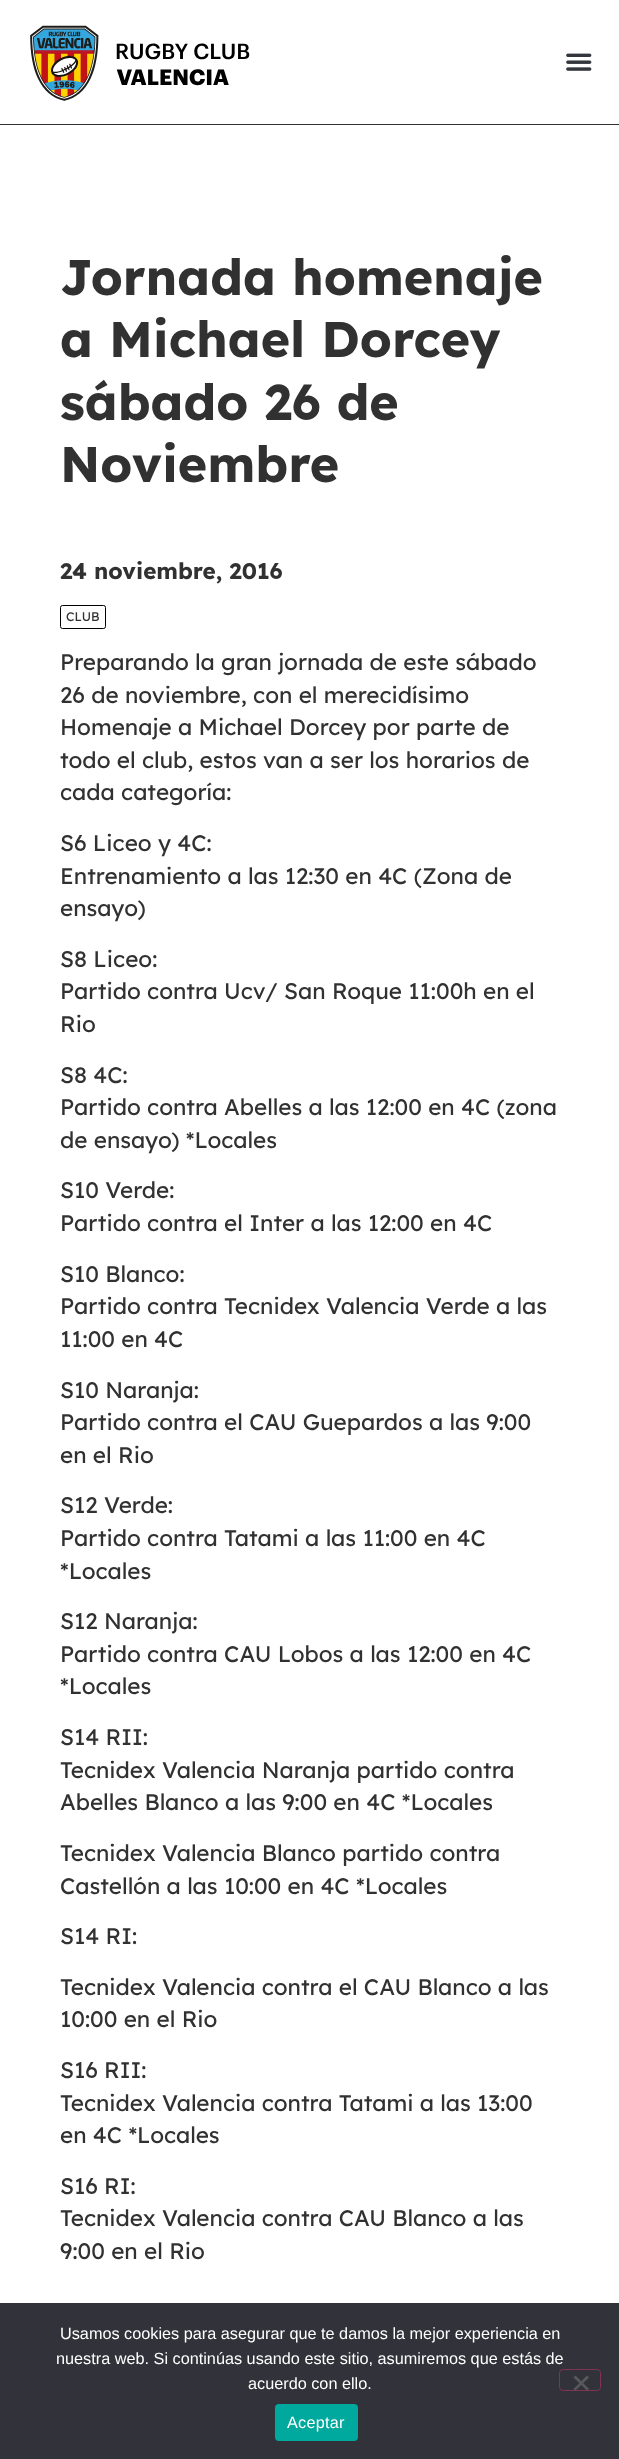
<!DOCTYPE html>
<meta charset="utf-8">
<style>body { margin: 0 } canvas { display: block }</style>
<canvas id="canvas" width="619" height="2459"></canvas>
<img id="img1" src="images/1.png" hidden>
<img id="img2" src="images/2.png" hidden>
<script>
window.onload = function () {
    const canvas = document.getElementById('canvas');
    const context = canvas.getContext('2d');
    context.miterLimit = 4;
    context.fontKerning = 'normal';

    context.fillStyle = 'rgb(255, 255, 255)';
    context.fillRect(0, 0, 619, 2459);
    context.fillStyle = 'rgb(49, 49, 49)';
    context.fillRect(0, 124, 619, 1);
    context.drawImage(document.getElementById('img1'), 30, 25, 220, 76);
    context.drawImage(document.getElementById('img2'), 566, 53, 26, 18);
    context.beginPath();
    context.roundRect(60.5, 605.5, 45, 23, 2);
    context.strokeStyle = 'rgb(0, 0, 0)';
    context.stroke();
    context.fillStyle = 'rgb(50, 50, 58)';
    context.fillRect(0, 2303, 619, 156);
    context.beginPath();
    context.roundRect(559.5, 2369.5, 41, 21, 3.5);
    context.strokeStyle = 'rgb(127, 51, 80)';
    context.stroke();
    context.fillStyle = 'rgb(89, 89, 93)';
    context.beginPath();
    context.moveTo(587, 2375.5);
    context.lineTo(589, 2377.5);
    context.lineTo(575.5, 2390.5);
    context.lineTo(573.5, 2389);
    context.closePath();
    context.fill();
    context.beginPath();
    context.moveTo(573.5, 2377.5);
    context.lineTo(575.5, 2375.5);
    context.lineTo(589, 2389);
    context.lineTo(587, 2390.5);
    context.closePath();
    context.fill();
    context.fillStyle = 'rgb(0, 169, 157)';
    context.beginPath();
    context.roundRect(275, 2404, 83, 37, 4);
    context.fill();
    context.font = 'bold 50px Lexend';
    context.fillStyle = 'rgb(49, 49, 49)';
    context.fillText('Jornada homenaje', 60, 295);
    context.fillText('a Michael Dorcey', 60, 357);
    context.fillText('sábado 26 de', 60, 420);
    context.fillText('Noviembre', 60, 482);
    context.font = 'bold 22.5px Lexend';
    context.fillText('24 noviembre, 2016', 60, 579);
    context.font = '12.5px Lexend';
    context.fillText('CLUB', 66, 621);
    context.font = '22.5px Lexend';
    context.fillText('Preparando la gran jornada de este sábado', 60, 670);
    context.fillText('26 de noviembre, con el merecidísimo', 60, 703);
    context.fillText('Homenaje a Michael Dorcey por parte de', 60, 735);
    context.fillText('todo el club, estos van a ser los horarios de', 60, 768);
    context.fillText('cada categoría:', 60, 800);
    context.fillText('S6 Liceo y 4C:', 60, 851);
    context.fillText('Entrenamiento a las 12:30 en 4C (Zona de', 60, 884);
    context.fillText('ensayo)', 60, 916);
    context.fillText('S8 Liceo:', 60, 967);
    context.fillText('Partido contra Ucv/ San Roque 11:00h en el', 60, 999);
    context.fillText('Rio', 60, 1032);
    context.fillText('S8 4C:', 60, 1083);
    context.fillText('Partido contra Abelles a las 12:00 en 4C (zona', 60, 1115);
    context.fillText('de ensayo) *Locales', 60, 1148);
    context.fillText('S10 Verde:', 60, 1198);
    context.fillText('Partido contra el Inter a las 12:00 en 4C', 60, 1231);
    context.fillText('S10 Blanco:', 60, 1282);
    context.fillText('Partido contra Tecnidex Valencia Verde a las', 60, 1314);
    context.fillText('11:00 en 4C', 60, 1347);
    context.fillText('S10 Naranja:', 60, 1398);
    context.fillText('Partido contra el CAU Guepardos a las 9:00', 60, 1430);
    context.fillText('en el Rio', 60, 1463);
    context.fillText('S12 Verde:', 60, 1513);
    context.fillText('Partido contra Tatami a las 11:00 en 4C', 60, 1546);
    context.fillText('*Locales', 60, 1579);
    context.fillText('S12 Naranja:', 60, 1629);
    context.fillText('Partido contra CAU Lobos a las 12:00 en 4C', 60, 1662);
    context.fillText('*Locales', 60, 1694);
    context.fillText('S14 RII:', 60, 1745);
    context.fillText('Tecnidex Valencia Naranja partido contra', 60, 1778);
    context.fillText('Abelles Blanco a las 9:00 en 4C *Locales', 60, 1810);
    context.fillText('Tecnidex Valencia Blanco partido contra', 60, 1861);
    context.fillText('Castellón a las 10:00 en 4C *Locales', 60, 1894);
    context.fillText('S14 RI:', 60, 1944);
    context.fillText('Tecnidex Valencia contra el CAU Blanco a las', 60, 1995);
    context.fillText('10:00 en el Rio', 60, 2027);
    context.fillText('S16 RII:', 60, 2078);
    context.fillText('Tecnidex Valencia contra Tatami a las 13:00', 60, 2111);
    context.fillText('en 4C *Locales', 60, 2143);
    context.fillText('S16 RI:', 60, 2194);
    context.fillText('Tecnidex Valencia contra CAU Blanco a las', 60, 2226);
    context.fillText('9:00 en el Rio', 60, 2259);
    context.font = '16.25px Liberation Sans';
    context.fillStyle = 'rgb(255, 255, 255)';
    context.fillText('Usamos cookies para asegurar que te damos la mejor experiencia en', 60, 2339);
    context.fillText('nuestra web. Si continúas usando este sitio, asumiremos que estás de', 56, 2364);
    context.fillText('acuerdo con ello.', 248, 2389);
    context.letterSpacing = '0.25px';
    context.fillText('Aceptar', 287, 2428);
};
</script>
